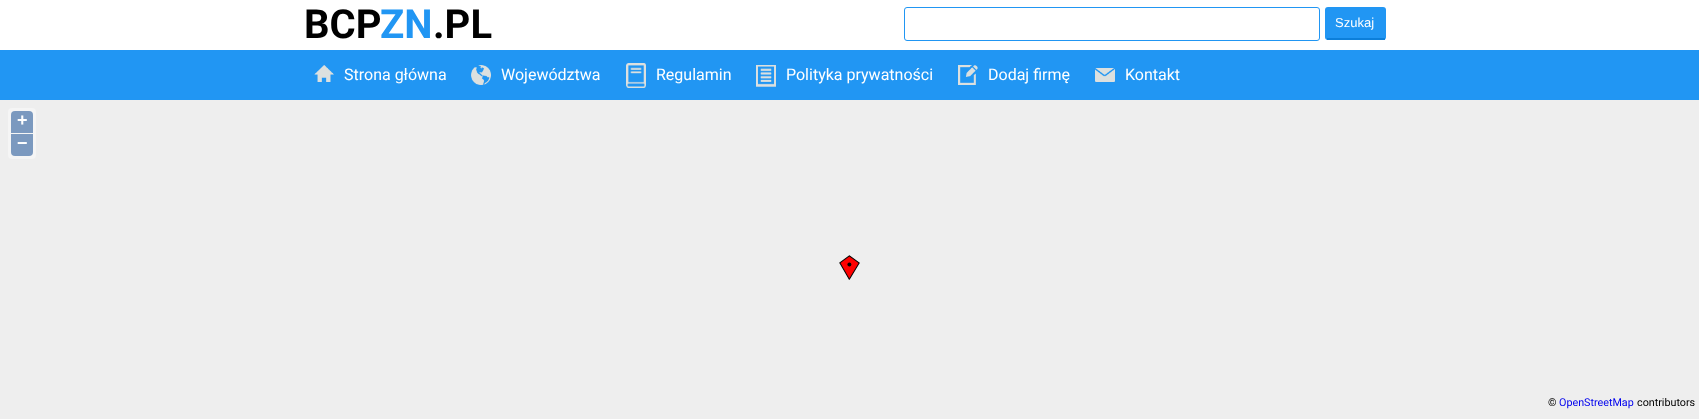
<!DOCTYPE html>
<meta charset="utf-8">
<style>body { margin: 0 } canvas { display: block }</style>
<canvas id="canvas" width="1699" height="419"></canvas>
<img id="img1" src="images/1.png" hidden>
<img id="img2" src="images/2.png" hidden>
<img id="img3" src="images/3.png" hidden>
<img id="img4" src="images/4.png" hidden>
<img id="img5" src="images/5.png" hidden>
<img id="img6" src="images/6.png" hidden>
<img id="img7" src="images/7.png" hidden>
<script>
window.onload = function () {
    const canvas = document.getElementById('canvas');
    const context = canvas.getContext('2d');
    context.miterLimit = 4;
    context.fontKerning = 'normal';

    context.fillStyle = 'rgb(255, 255, 255)';
    context.fillRect(0, 0, 1699, 419);
    context.beginPath();
    context.roundRect(904.5, 7.5, 415, 33, 2.5);
    context.strokeStyle = 'rgb(33, 150, 243)';
    context.stroke();
    context.fillStyle = 'rgb(33, 150, 243)';
    context.beginPath();
    context.roundRect(1325, 7, 61, 33, 3);
    context.fill();
    context.fillStyle = 'rgb(12, 127, 218)';
    context.fillRect(1327, 38, 58, 2);
    context.fillStyle = 'rgb(33, 150, 243)';
    context.fillRect(0, 50, 1699, 50);
    context.drawImage(document.getElementById('img1'), 314, 65, 20, 17);
    context.drawImage(document.getElementById('img2'), 471, 65, 20, 20);
    context.drawImage(document.getElementById('img3'), 626, 63, 20, 25);
    context.drawImage(document.getElementById('img4'), 756, 65, 20, 22);
    context.drawImage(document.getElementById('img5'), 958, 65, 20, 20);
    context.drawImage(document.getElementById('img6'), 1095, 68, 20, 14);
    context.fillStyle = 'rgb(238, 238, 238)';
    context.fillRect(0, 100, 1699, 319);
    context.fillStyle = 'rgb(245, 245, 245)';
    context.beginPath();
    context.roundRect(8, 108, 28, 51, 4);
    context.fill();
    context.fillStyle = 'rgb(123, 153, 191)';
    context.beginPath();
    context.roundRect(11, 111, 22, 22, [4, 4, 0, 0]);
    context.fill();
    context.beginPath();
    context.roundRect(11, 134, 22, 22, [0, 0, 4, 4]);
    context.fill();
    context.drawImage(document.getElementById('img7'), 839, 255, 21, 25);
    context.font = 'bold 40px Roboto';
    context.fillStyle = 'rgb(0, 0, 0)';
    context.fillText('BCP', 304, 38);
    context.fillStyle = 'rgb(33, 150, 243)';
    context.fillText('ZN', 380, 38);
    context.fillStyle = 'rgb(0, 0, 0)';
    context.fillText('.PL', 433, 38);
    context.font = '13px Liberation Sans';
    context.fillStyle = 'rgb(255, 255, 255)';
    context.fillText('Szukaj', 1335, 27);
    context.font = '16px Roboto';
    context.fillText('Strona główna', 344, 80);
    context.fillText('Województwa', 501, 80);
    context.fillText('Regulamin', 656, 80);
    context.fillText('Polityka prywatności', 786, 80);
    context.fillText('Dodaj firmę', 988, 80);
    context.fillText('Kontakt', 1125, 80);
    context.font = 'bold 18px Liberation Sans';
    context.fillText('+', 17, 126);
    context.fillText('−', 17, 149);
    context.font = '10.75px Roboto';
    context.fillStyle = 'rgb(0, 0, 0)';
    context.fillText('©', 1548, 406);
    context.fillStyle = 'rgb(0, 0, 238)';
    context.fillText('OpenStreetMap', 1559, 406);
    context.fillStyle = 'rgb(0, 0, 0)';
    context.fillText('contributors', 1637, 406);
};
</script>
